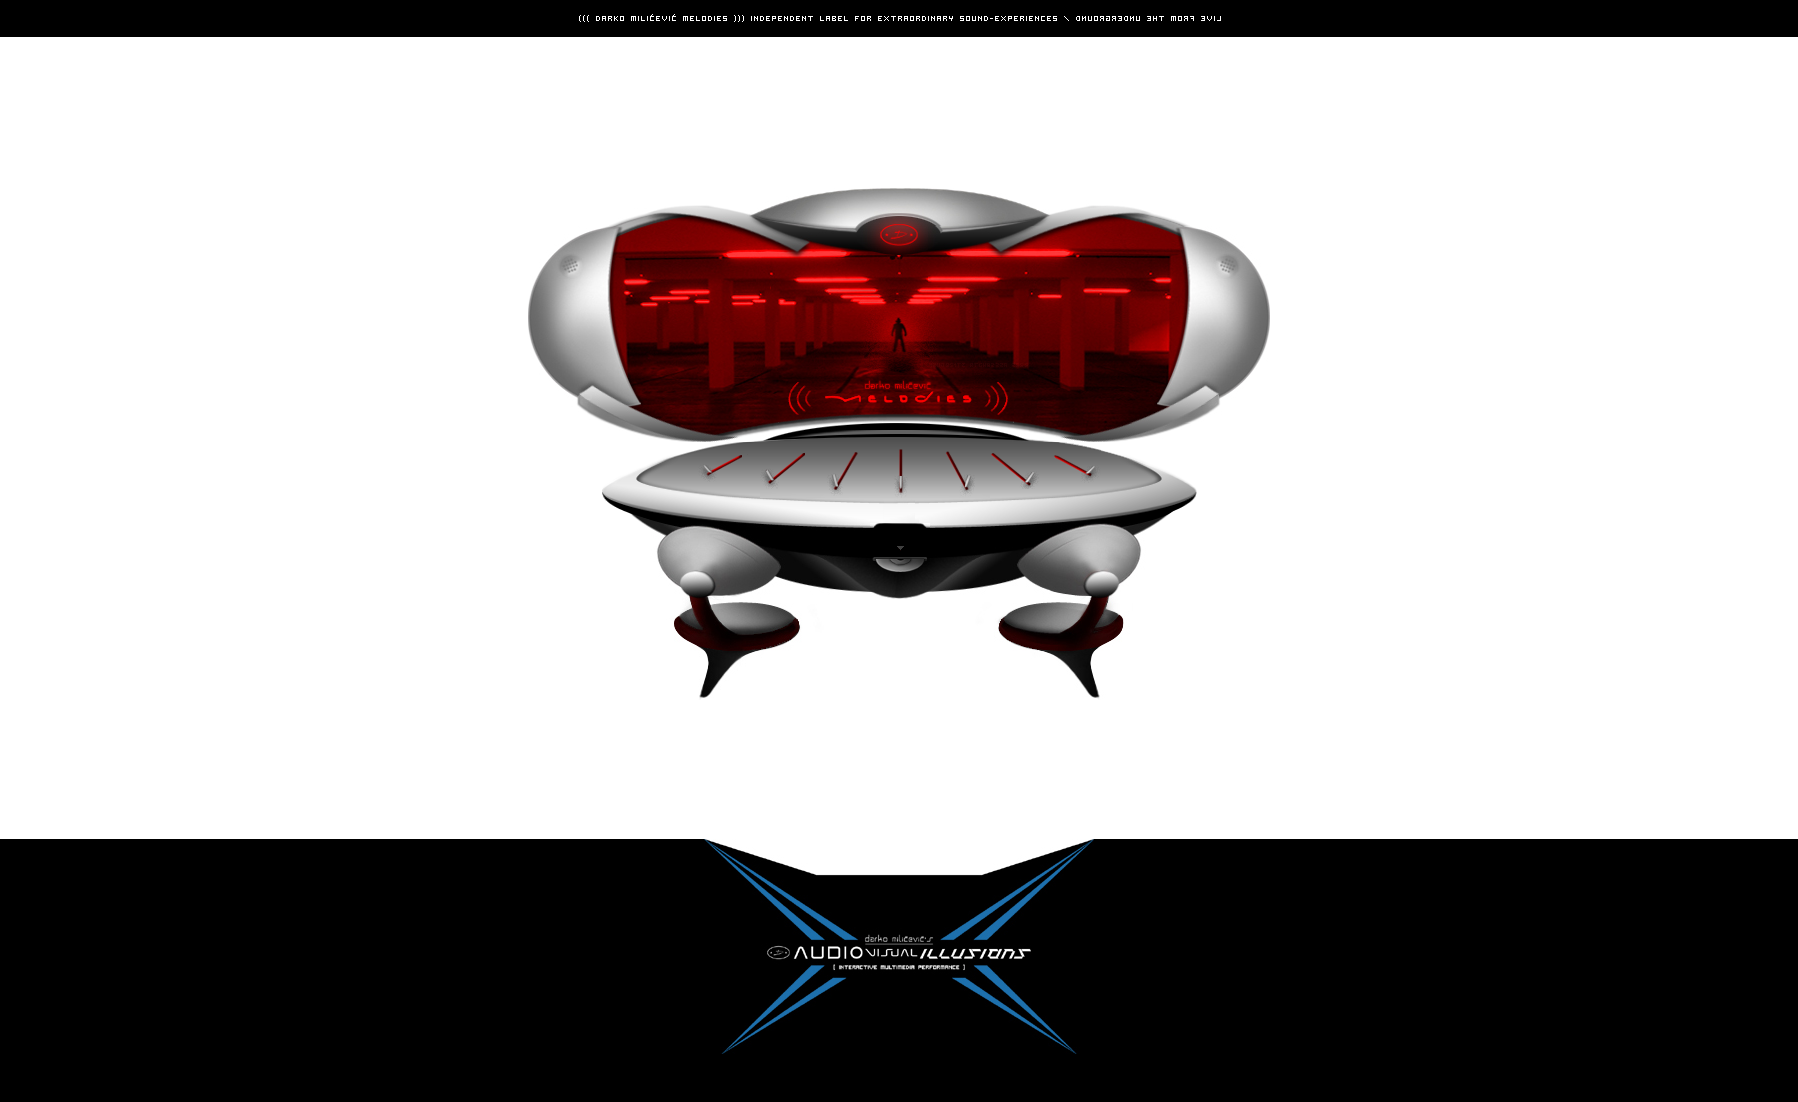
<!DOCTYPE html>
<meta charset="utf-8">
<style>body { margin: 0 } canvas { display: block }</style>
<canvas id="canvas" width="1798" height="1102"></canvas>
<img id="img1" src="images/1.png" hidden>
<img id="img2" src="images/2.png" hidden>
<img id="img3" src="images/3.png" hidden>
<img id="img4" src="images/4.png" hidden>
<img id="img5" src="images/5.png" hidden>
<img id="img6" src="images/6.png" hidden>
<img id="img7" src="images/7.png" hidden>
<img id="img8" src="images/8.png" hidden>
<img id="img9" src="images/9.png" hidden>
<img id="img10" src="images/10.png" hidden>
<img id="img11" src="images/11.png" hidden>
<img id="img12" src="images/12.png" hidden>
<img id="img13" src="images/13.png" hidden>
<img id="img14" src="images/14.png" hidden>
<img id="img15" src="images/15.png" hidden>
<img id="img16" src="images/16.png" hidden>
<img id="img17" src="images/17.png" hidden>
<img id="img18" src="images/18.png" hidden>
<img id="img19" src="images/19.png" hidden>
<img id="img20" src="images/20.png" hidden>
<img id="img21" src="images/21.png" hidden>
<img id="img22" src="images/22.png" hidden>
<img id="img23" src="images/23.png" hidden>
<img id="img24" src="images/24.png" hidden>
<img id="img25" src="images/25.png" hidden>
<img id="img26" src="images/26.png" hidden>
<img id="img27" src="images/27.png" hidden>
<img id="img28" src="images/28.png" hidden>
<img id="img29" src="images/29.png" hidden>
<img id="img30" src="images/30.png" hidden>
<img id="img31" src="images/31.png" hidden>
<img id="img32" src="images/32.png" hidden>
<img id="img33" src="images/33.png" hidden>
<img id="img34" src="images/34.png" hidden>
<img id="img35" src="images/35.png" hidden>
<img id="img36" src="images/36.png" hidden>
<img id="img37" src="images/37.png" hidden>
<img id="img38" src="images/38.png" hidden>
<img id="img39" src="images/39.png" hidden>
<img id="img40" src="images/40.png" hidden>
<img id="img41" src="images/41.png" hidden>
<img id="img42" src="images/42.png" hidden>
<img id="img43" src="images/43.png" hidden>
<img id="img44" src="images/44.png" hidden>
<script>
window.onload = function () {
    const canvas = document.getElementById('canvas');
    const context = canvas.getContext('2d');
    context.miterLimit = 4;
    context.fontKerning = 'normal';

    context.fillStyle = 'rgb(255, 255, 255)';
    context.fillRect(0, 0, 1798, 1102);
    context.fillStyle = 'rgb(0, 0, 0)';
    context.fillRect(0, 0, 1798, 37);
    context.drawImage(document.getElementById('img1'), 579, 14, 642, 8);
    context.drawImage(document.getElementById('img2'), 609, 188, 581, 38);
    context.drawImage(document.getElementById('img3'), 528, 226, 113, 149);
    context.drawImage(document.getElementById('img4'), 641, 226, 229, 149);
    context.drawImage(document.getElementById('img5'), 870, 226, 58, 20);
    context.drawImage(document.getElementById('img6'), 870, 246, 58, 46);
    context.drawImage(document.getElementById('img7'), 870, 292, 58, 83);
    context.drawImage(document.getElementById('img8'), 928, 226, 229, 149);
    context.drawImage(document.getElementById('img9'), 1157, 226, 113, 149);
    context.drawImage(document.getElementById('img10'), 548, 375, 230, 48);
    context.drawImage(document.getElementById('img11'), 778, 375, 236, 48);
    context.drawImage(document.getElementById('img12'), 1014, 375, 235, 48);
    context.drawImage(document.getElementById('img13'), 607, 423, 584, 19);
    context.drawImage(document.getElementById('img14'), 602, 449, 97, 49);
    context.drawImage(document.getElementById('img15'), 705, 442, 38, 6);
    context.drawImage(document.getElementById('img16'), 699, 448, 44, 34);
    context.drawImage(document.getElementById('img17'), 699, 482, 44, 16);
    context.drawImage(document.getElementById('img18'), 743, 442, 17, 6);
    context.drawImage(document.getElementById('img19'), 743, 448, 17, 34);
    context.drawImage(document.getElementById('img20'), 743, 482, 17, 16);
    context.drawImage(document.getElementById('img21'), 760, 442, 46, 47);
    context.drawImage(document.getElementById('img22'), 760, 489, 46, 9);
    context.drawImage(document.getElementById('img23'), 806, 442, 19, 6);
    context.drawImage(document.getElementById('img24'), 806, 448, 19, 38);
    context.drawImage(document.getElementById('img25'), 806, 486, 19, 12);
    context.drawImage(document.getElementById('img26'), 825, 442, 34, 56);
    context.drawImage(document.getElementById('img27'), 859, 442, 35, 56);
    context.drawImage(document.getElementById('img28'), 894, 442, 15, 56);
    context.drawImage(document.getElementById('img29'), 909, 442, 36, 56);
    context.drawImage(document.getElementById('img30'), 945, 442, 30, 56);
    context.drawImage(document.getElementById('img31'), 975, 442, 15, 56);
    context.drawImage(document.getElementById('img32'), 990, 442, 50, 47);
    context.drawImage(document.getElementById('img33'), 990, 489, 50, 9);
    context.drawImage(document.getElementById('img34'), 1040, 442, 12, 56);
    context.drawImage(document.getElementById('img35'), 1052, 442, 49, 41);
    context.drawImage(document.getElementById('img36'), 1052, 483, 49, 15);
    context.drawImage(document.getElementById('img37'), 1101, 450, 96, 48);
    context.drawImage(document.getElementById('img38'), 604, 498, 591, 25);
    context.drawImage(document.getElementById('img39'), 642, 523, 228, 177);
    context.drawImage(document.getElementById('img40'), 870, 523, 60, 22);
    context.drawImage(document.getElementById('img41'), 870, 545, 60, 29);
    context.drawImage(document.getElementById('img42'), 870, 574, 60, 25);
    context.drawImage(document.getElementById('img43'), 930, 523, 227, 177);
    context.fillRect(0, 839, 1798, 263);
    context.drawImage(document.getElementById('img44'), 704, 839, 390, 215);
};
</script>
